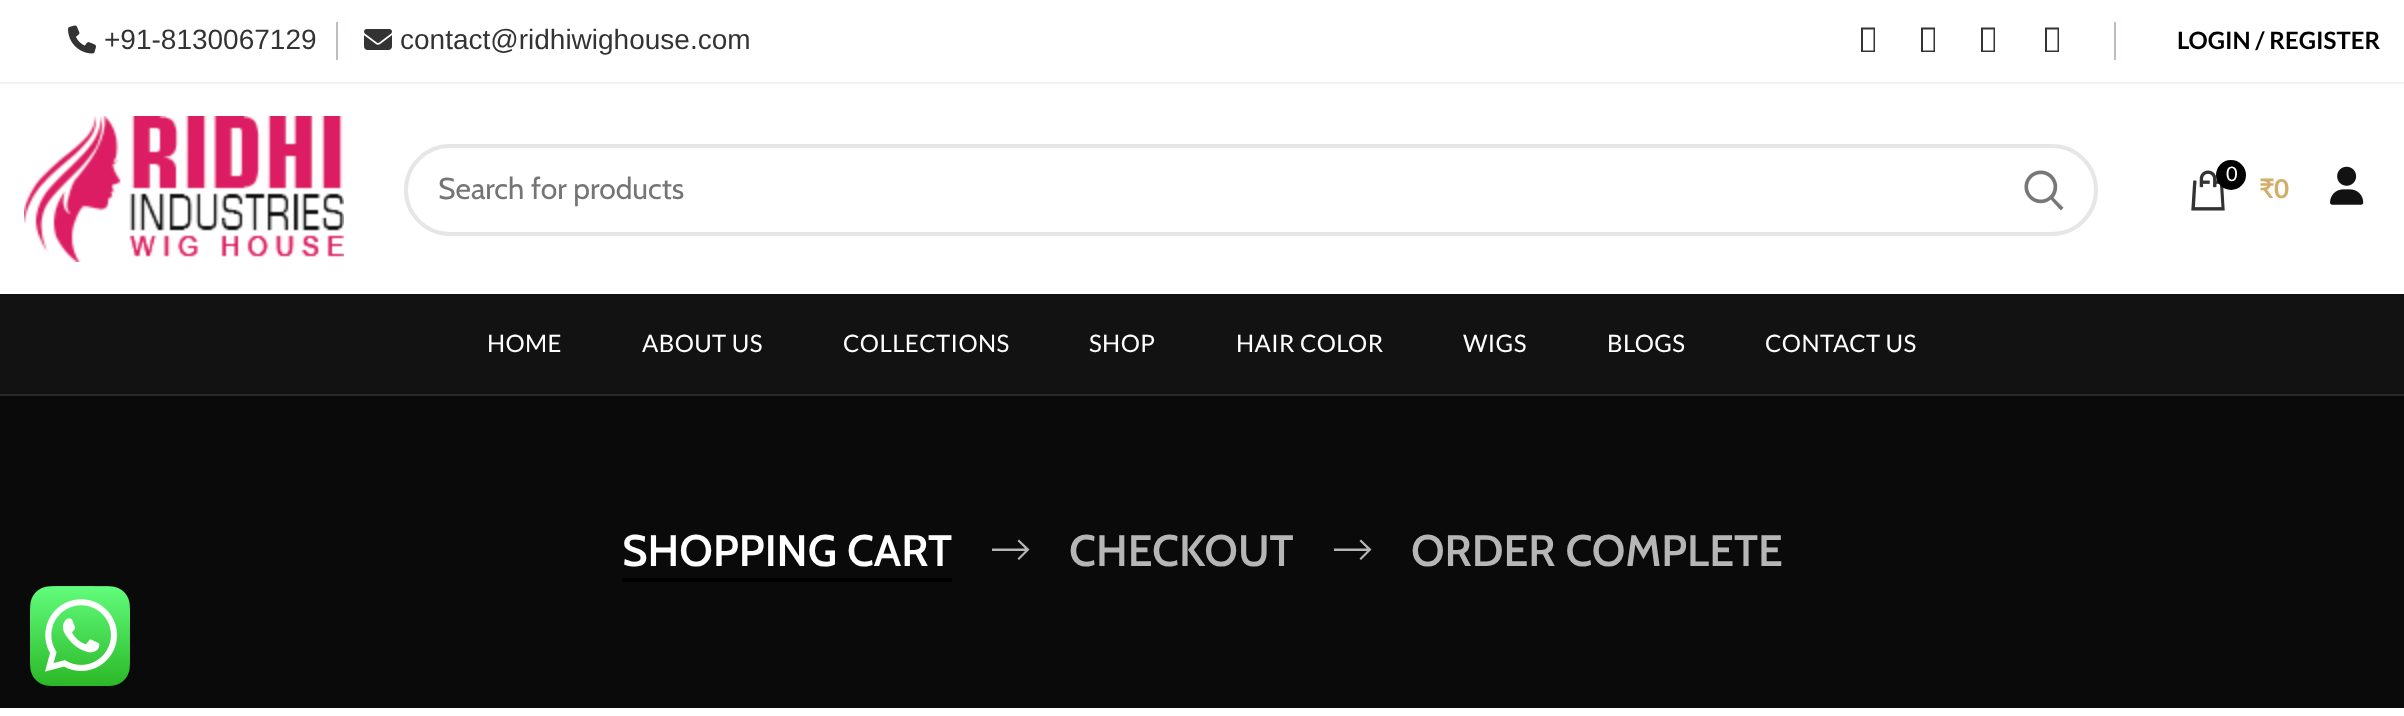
<!DOCTYPE html>
<meta charset="utf-8">
<style>body { margin: 0 } canvas { display: block }</style>
<canvas id="canvas" width="2404" height="716"></canvas>
<img id="img1" src="images/1.png" hidden>
<img id="img2" src="images/2.png" hidden>
<img id="img3" src="images/3.png" hidden>
<img id="img4" src="images/4.png" hidden>
<img id="img5" src="images/5.png" hidden>
<img id="img6" src="images/6.png" hidden>
<img id="img7" src="images/7.png" hidden>
<script>
window.onload = function () {
    const canvas = document.getElementById('canvas');
    const context = canvas.getContext('2d');
    context.miterLimit = 4;
    context.fontKerning = 'normal';

    context.fillStyle = 'rgb(255, 255, 255)';
    context.fillRect(0, 0, 2404, 716);
    context.fillStyle = 'rgb(242, 242, 242)';
    context.fillRect(0, 82, 2404, 2);
    context.fillStyle = 'rgb(197, 187, 187)';
    context.fillRect(336, 22, 2, 38);
    context.drawImage(document.getElementById('img1'), 68, 25, 28, 29);
    context.drawImage(document.getElementById('img2'), 364, 29, 28, 21);
    context.fillRect(2114, 22, 2, 38);
    context.fillStyle = 'rgb(51, 51, 51)';
    context.beginPath();
    context.moveTo(1861, 52);
    context.lineTo(1861, 27.5);
    context.lineTo(1875, 27.5);
    context.lineTo(1875, 52);
    context.closePath();
    context.moveTo(1863, 50.5);
    context.lineTo(1873.5, 50.5);
    context.lineTo(1873.5, 29.5);
    context.lineTo(1863, 29.5);
    context.closePath();
    context.fill();
    context.beginPath();
    context.moveTo(1921, 52);
    context.lineTo(1921, 27.5);
    context.lineTo(1935, 27.5);
    context.lineTo(1935, 52);
    context.closePath();
    context.moveTo(1923, 50.5);
    context.lineTo(1933.5, 50.5);
    context.lineTo(1933.5, 29.5);
    context.lineTo(1923, 29.5);
    context.closePath();
    context.fill();
    context.beginPath();
    context.moveTo(1981, 52);
    context.lineTo(1981, 27.5);
    context.lineTo(1995, 27.5);
    context.lineTo(1995, 52);
    context.closePath();
    context.moveTo(1983, 50.5);
    context.lineTo(1993.5, 50.5);
    context.lineTo(1993.5, 29.5);
    context.lineTo(1983, 29.5);
    context.closePath();
    context.fill();
    context.beginPath();
    context.moveTo(2045, 52);
    context.lineTo(2045, 27.5);
    context.lineTo(2059, 27.5);
    context.lineTo(2059, 52);
    context.closePath();
    context.moveTo(2047, 50.5);
    context.lineTo(2057.5, 50.5);
    context.lineTo(2057.5, 29.5);
    context.lineTo(2047, 29.5);
    context.closePath();
    context.fill();
    context.drawImage(document.getElementById('img3'), 24, 116, 320, 146);
    context.beginPath();
    context.roundRect(406, 146, 1690, 88, 44);
    context.strokeStyle = 'rgb(230, 230, 230)';
    context.lineWidth = 4;
    context.stroke();
    context.drawImage(document.getElementById('img4'), 2024, 170, 40, 41);
    context.drawImage(document.getElementById('img5'), 2191, 170, 34, 41);
    context.fillStyle = 'rgb(0, 0, 0)';
    context.beginPath();
    context.arc(2231, 175, 15, 0, 2 * Math.PI);
    context.fill();
    context.drawImage(document.getElementById('img6'), 2330, 166, 34, 39);
    context.fillStyle = 'rgb(18, 18, 18)';
    context.fillRect(0, 294, 2404, 100);
    context.fillStyle = 'rgb(40, 40, 40)';
    context.fillRect(0, 394, 2404, 2);
    context.fillStyle = 'rgb(10, 10, 10)';
    context.fillRect(0, 396, 2404, 312);
    context.fillStyle = 'rgb(0, 0, 0)';
    context.fillRect(622, 578, 330, 4);
    context.fillStyle = 'rgb(182, 182, 182)';
    context.beginPath();
    context.moveTo(1019, 539.5);
    context.lineTo(1029.5, 549.5);
    context.lineTo(1019, 560);
    context.lineTo(1017.5, 558.5);
    context.lineTo(1025, 551);
    context.lineTo(992, 551);
    context.lineTo(992, 548.5);
    context.lineTo(1025, 548.5);
    context.lineTo(1017.5, 541);
    context.closePath();
    context.fill();
    context.beginPath();
    context.moveTo(1361, 539.5);
    context.lineTo(1371.5, 549.5);
    context.lineTo(1361, 560);
    context.lineTo(1359.5, 558.5);
    context.lineTo(1367, 551);
    context.lineTo(1334, 551);
    context.lineTo(1334, 548.5);
    context.lineTo(1367, 548.5);
    context.lineTo(1359.5, 541);
    context.closePath();
    context.fill();
    context.drawImage(document.getElementById('img7'), 30, 586, 100, 100);
    context.font = '28px Liberation Sans';
    context.fillStyle = 'rgb(51, 51, 51)';
    context.fillText('+91-8130067129', 104, 49);
    context.fillText('contact@ridhiwighouse.com', 400, 49);
    context.font = 'bold 24px Lato';
    context.fillStyle = 'rgb(0, 0, 0)';
    context.fillText('LOGIN / REGISTER', 2177, 49);
    context.font = '30px Cabin';
    context.fillStyle = 'rgb(117, 117, 117)';
    context.fillText('Search for products', 438, 199);
    context.font = '20px Lato';
    context.fillStyle = 'rgb(255, 255, 255)';
    context.fillText('0', 2226, 181);
    context.font = 'bold 26px "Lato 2"';
    context.fillStyle = 'rgb(211, 173, 105)';
    context.fillText('₹', 2259, 198);
    context.font = 'bold 26px Lato';
    context.fillText('0', 2274, 198);
    context.letterSpacing = '0.4px';
    context.font = '24px Lato';
    context.fillStyle = 'rgb(255, 255, 255)';
    context.fillText('HOME', 487, 352);
    context.fillText('ABOUT US', 642, 352);
    context.fillText('COLLECTIONS', 843, 352);
    context.fillText('SHOP', 1089, 352);
    context.fillText('HAIR COLOR', 1236, 352);
    context.fillText('WIGS', 1463, 352);
    context.fillText('BLOGS', 1607, 352);
    context.fillText('CONTACT US', 1765, 352);
    context.letterSpacing = '0px';
    context.font = '600 44px Cabin';
    context.fillText('SHOPPING CART', 622, 566);
    context.fillStyle = 'rgb(182, 182, 182)';
    context.fillText('CHECKOUT', 1069, 566);
    context.fillText('ORDER COMPLETE', 1411, 566);
};
</script>
